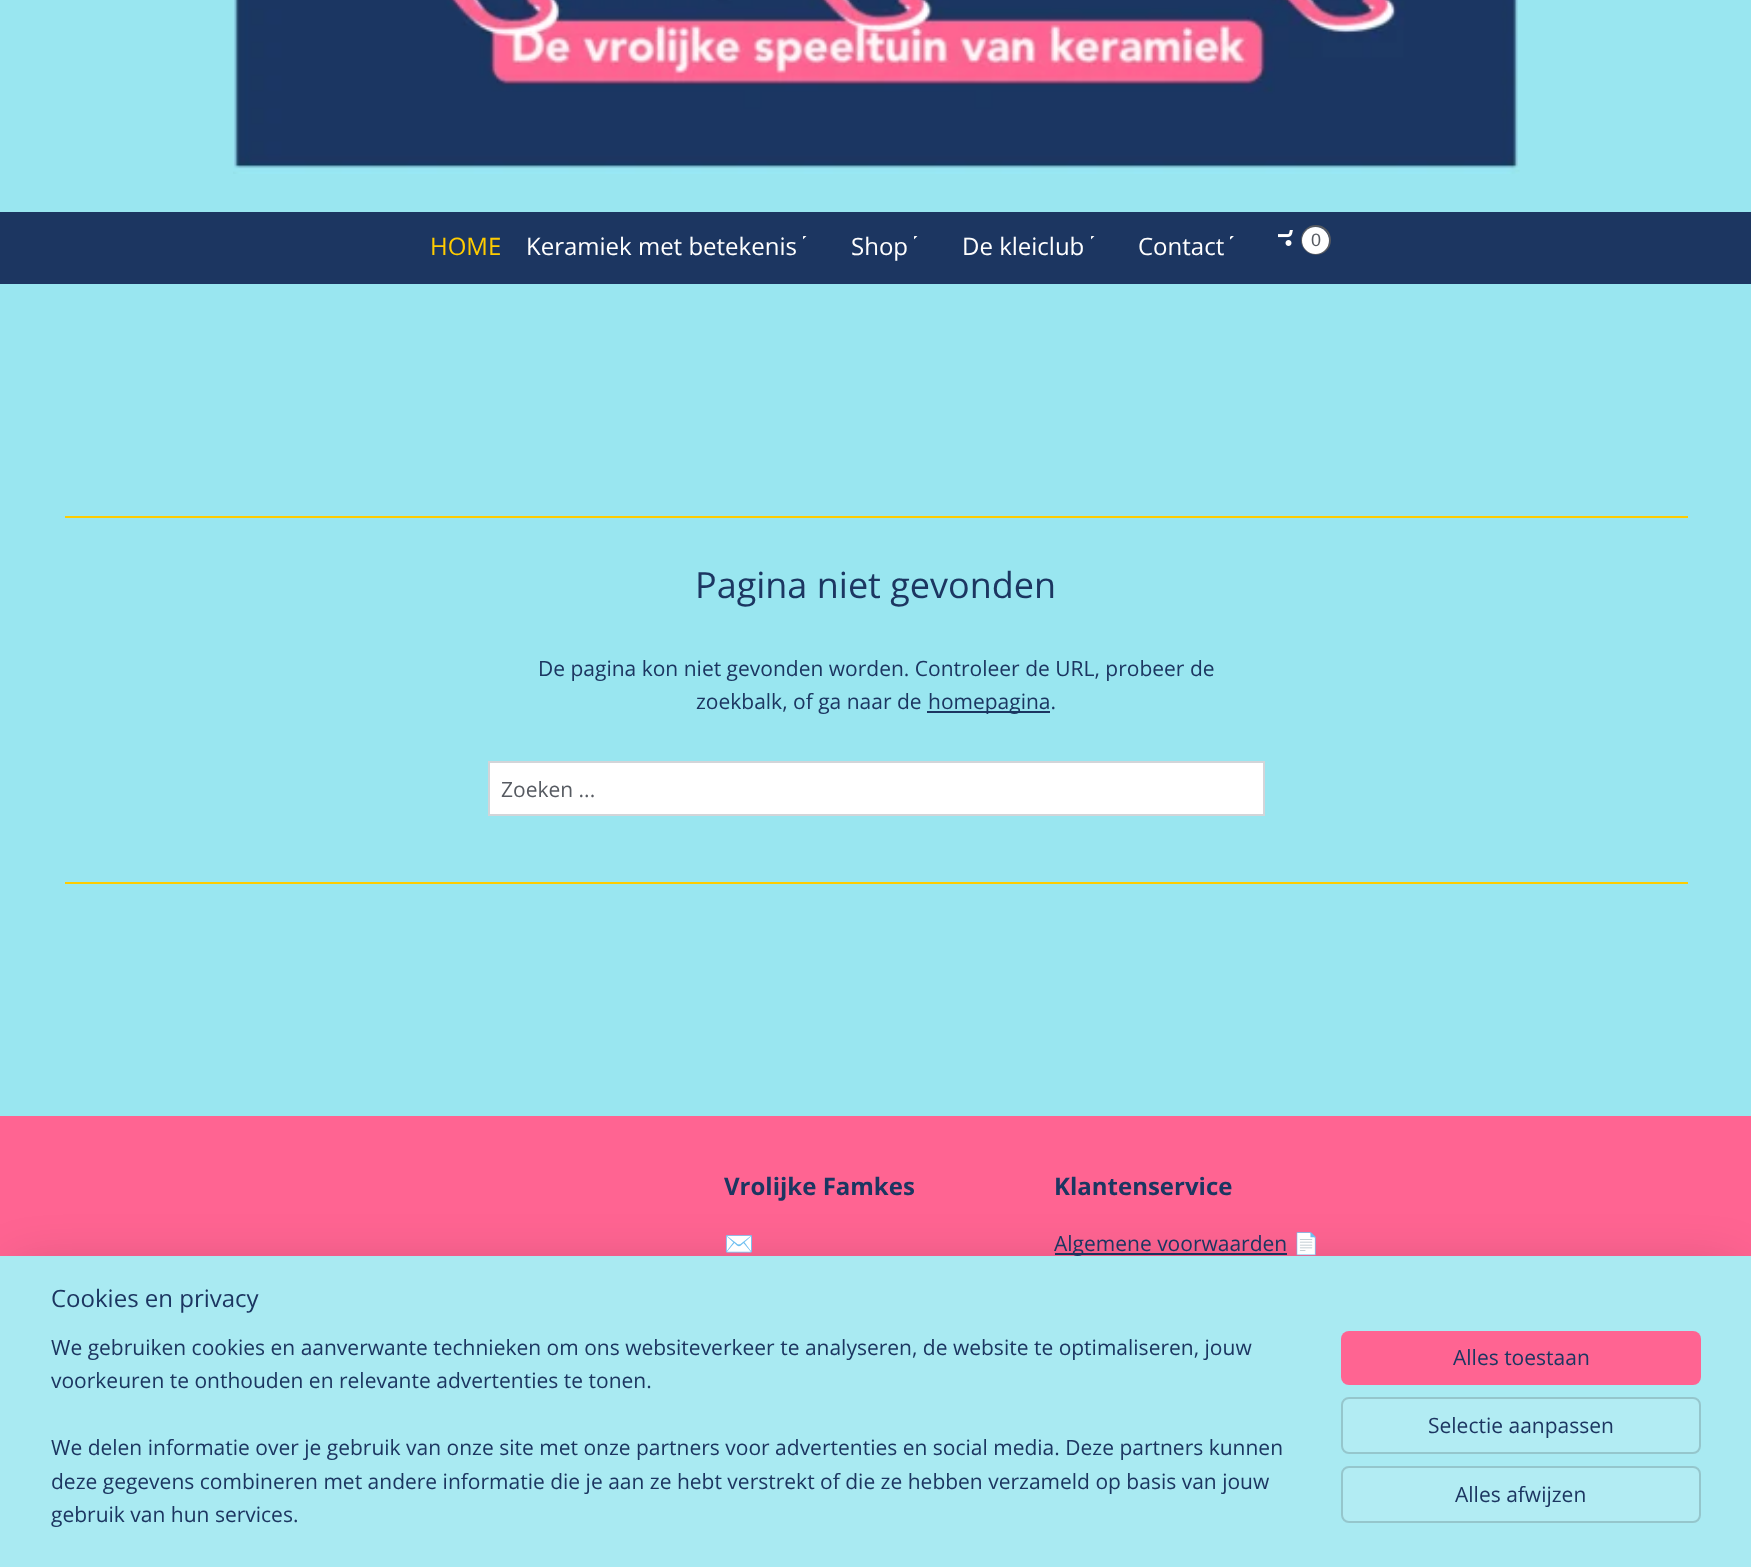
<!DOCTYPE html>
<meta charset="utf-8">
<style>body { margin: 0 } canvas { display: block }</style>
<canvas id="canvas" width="1751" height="1567"></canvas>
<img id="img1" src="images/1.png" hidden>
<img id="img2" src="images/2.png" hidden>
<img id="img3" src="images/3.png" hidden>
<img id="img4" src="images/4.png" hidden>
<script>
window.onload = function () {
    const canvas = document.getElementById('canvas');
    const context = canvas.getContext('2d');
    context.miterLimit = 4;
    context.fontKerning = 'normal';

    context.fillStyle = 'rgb(255, 100, 146)';
    context.fillRect(0, 0, 1751, 1567);
    context.fillStyle = 'rgb(153, 230, 240)';
    context.fillRect(0, 0, 1751, 1116);
    context.drawImage(document.getElementById('img1'), 233, 0, 1287, 174);
    context.fillStyle = 'rgb(28, 54, 97)';
    context.fillRect(0, 212, 1751, 72);
    context.drawImage(document.getElementById('img2'), 803, 236, 4, 4);
    context.drawImage(document.getElementById('img2'), 914, 236, 4, 4);
    context.drawImage(document.getElementById('img2'), 1091, 236, 4, 4);
    context.drawImage(document.getElementById('img3'), 1230, 236, 4, 4);
    context.drawImage(document.getElementById('img4'), 1278, 230, 15, 16);
    context.beginPath();
    context.arc(1316, 240, 14, 0, 2 * Math.PI);
    context.strokeStyle = 'rgb(87, 91, 98)';
    context.lineWidth = 2;
    context.stroke();
    context.fillStyle = 'rgb(255, 255, 255)';
    context.beginPath();
    context.arc(1315.5, 240.5, 13.5, 0, 2 * Math.PI);
    context.fill();
    context.fillStyle = 'rgb(255, 204, 0)';
    context.fillRect(65, 516, 1623, 2);
    context.fillRect(65, 882, 1623, 2);
    context.fillStyle = 'rgb(28, 54, 97)';
    context.fillRect(927, 711, 123, 2);
    context.fillStyle = 'rgb(255, 255, 255)';
    context.beginPath();
    context.rect(489, 762, 775, 53);
    context.fill();
    context.strokeStyle = 'rgb(211, 213, 217)';
    context.stroke();
    context.fillStyle = 'rgb(28, 54, 97)';
    context.fillRect(1055, 1253, 232, 2);
    context.fillStyle = 'rgba(0, 0, 0, 0.2)';
    context.filter = 'blur(27px)';
    context.beginPath();
    context.rect(15, 1271, 1722, 282);
    context.fill();
    context.filter = 'none';
    context.font = '24px Open Sans';
    context.fillStyle = 'rgb(255, 204, 0)';
    context.fillText('HOME', 430, 255);
    context.fillStyle = 'rgb(255, 255, 255)';
    context.fillText('Keramiek met betekenis', 526, 255);
    context.fillText('Shop', 851, 255);
    context.fillText('De kleiclub', 962, 255);
    context.fillText('Contact', 1138, 255);
    context.font = '18px Liberation Sans';
    context.fillStyle = 'rgb(87, 91, 98)';
    context.fillText('0', 1311, 246);
    context.font = '36px Open Sans';
    context.fillStyle = 'rgb(28, 54, 97)';
    context.fillText('Pagina niet gevonden', 695, 598);
    context.font = '21px Open Sans';
    context.fillText('De pagina kon niet gevonden worden. Controleer de URL, probeer de', 538, 676);
    context.fillText('zoekbalk, of ga naar de', 696, 709);
    context.fillText('homepagina.', 928, 709);
    context.fillStyle = 'rgb(87, 91, 98)';
    context.fillText('Zoeken ...', 501, 797);
    context.font = 'bold 24px Open Sans';
    context.fillStyle = 'rgb(28, 54, 97)';
    context.fillText('Vrolijke Famkes', 724, 1195);
    context.font = 'bold 24px Noto Color Emoji';
    context.fillText('✉️', 724, 1252);
    context.font = 'bold 24px Open Sans';
    context.fillText('Klantenservice', 1054, 1195);
    context.font = '21px Open Sans';
    context.fillText('Algemene voorwaarden', 1054, 1251);
    context.font = '21px Noto Color Emoji';
    context.fillText('📄', 1293, 1251);
    context.fillStyle = 'rgb(169, 234, 242)';
    context.fillRect(0, 1256, 1751, 311);
    context.font = '24px Open Sans';
    context.fillStyle = 'rgb(28, 54, 97)';
    context.fillText('Cookies en privacy', 51, 1307);
    context.font = '21px Open Sans';
    context.fillText('We gebruiken cookies en aanverwante technieken om ons websiteverkeer te analyseren, de website te optimaliseren, jouw', 51, 1355);
    context.fillText('voorkeuren te onthouden en relevante advertenties te tonen.', 51, 1388);
    context.fillText('We delen informatie over je gebruik van onze site met onze partners voor advertenties en social media. Deze partners kunnen', 51, 1455);
    context.fillText('deze gegevens combineren met andere informatie die je aan ze hebt verstrekt of die ze hebben verzameld op basis van jouw', 51, 1489);
    context.fillText('gebruik van hun services.', 51, 1522);
    context.fillStyle = 'rgb(255, 100, 146)';
    context.beginPath();
    context.roundRect(1341, 1331, 360, 54, 8);
    context.fill();
    context.fillStyle = 'rgb(28, 54, 97)';
    context.fillText('Alles toestaan', 1453, 1365);
    context.fillStyle = 'rgb(178, 236, 243)';
    context.beginPath();
    context.roundRect(1341, 1397, 360, 57, 8);
    context.fill();
    context.beginPath();
    context.roundRect(1342, 1398, 358, 55, 7);
    context.strokeStyle = 'rgba(0, 0, 0, 0.16)';
    context.stroke();
    context.fillStyle = 'rgb(28, 54, 97)';
    context.fillText('Selectie aanpassen', 1428, 1433);
    context.fillStyle = 'rgb(178, 236, 243)';
    context.beginPath();
    context.roundRect(1341, 1466, 360, 57, 8);
    context.fill();
    context.beginPath();
    context.roundRect(1342, 1467, 358, 55, 7);
    context.stroke();
    context.fillStyle = 'rgb(28, 54, 97)';
    context.fillText('Alles afwijzen', 1455, 1502);
};
</script>
